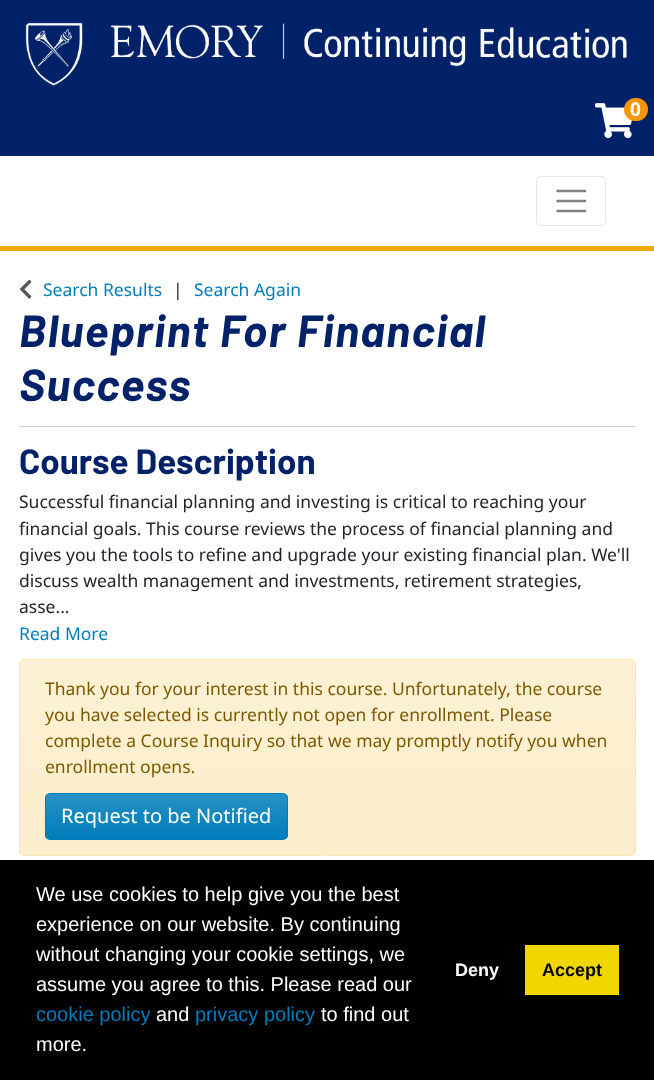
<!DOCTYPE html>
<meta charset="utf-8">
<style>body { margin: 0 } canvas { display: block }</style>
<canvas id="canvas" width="654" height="1080"></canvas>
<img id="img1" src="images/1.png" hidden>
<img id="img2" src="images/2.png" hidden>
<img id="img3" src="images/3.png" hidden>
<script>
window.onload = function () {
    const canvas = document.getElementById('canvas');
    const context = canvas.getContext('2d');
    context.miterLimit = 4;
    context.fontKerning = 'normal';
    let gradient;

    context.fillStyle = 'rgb(255, 255, 255)';
    context.fillRect(0, 0, 654, 1080);
    context.fillStyle = 'rgb(1, 33, 105)';
    context.fillRect(0, 0, 654, 156);
    context.drawImage(document.getElementById('img1'), 25, 22, 602, 64);
    context.drawImage(document.getElementById('img2'), 595, 103, 37, 36);
    context.fillStyle = 'rgb(248, 148, 6)';
    context.beginPath();
    context.roundRect(624, 98, 24, 23, 11.5);
    context.fill();
    context.fillStyle = 'rgb(242, 169, 0)';
    context.fillRect(0, 246, 654, 5);
    context.beginPath();
    context.roundRect(536.5, 176.5, 69, 49, 4.5);
    context.strokeStyle = 'rgb(230, 230, 230)';
    context.stroke();
    context.beginPath();
    context.moveTo(557.5, 191);
    context.lineTo(585, 191);
    context.moveTo(557.5, 201);
    context.lineTo(585, 201);
    context.moveTo(557.5, 211);
    context.lineTo(585, 211);
    context.strokeStyle = 'rgb(128, 128, 128)';
    context.lineWidth = 2.5;
    context.lineCap = 'round';
    context.stroke();
    context.drawImage(document.getElementById('img3'), 19, 279, 13, 20);
    context.fillStyle = 'rgb(204, 204, 204)';
    context.fillRect(19, 426, 617, 1);
    context.save();
    context.beginPath();
    context.roundRect(19, 659, 617, 197, 5);
    context.clip();
    gradient = context.createLinearGradient(328, 660, 328, 855);
    gradient.addColorStop(0, 'rgb(252, 241, 212)');
    gradient.addColorStop(1, 'rgb(252, 238, 204)');
    context.fillStyle = gradient;
    context.fillRect(19, 660, 617, 195);
    context.restore();
    context.beginPath();
    context.roundRect(19.5, 659.5, 616, 196, 4.5);
    context.strokeStyle = 'rgb(251, 231, 184)';
    context.lineWidth = 1;
    context.stroke();
    context.save();
    context.beginPath();
    context.roundRect(45, 793, 243, 47, 5);
    context.clip();
    gradient = context.createLinearGradient(166, 794, 166, 839);
    gradient.addColorStop(0, 'rgb(38, 145, 196)');
    gradient.addColorStop(1, 'rgb(0, 125, 186)');
    context.fillStyle = gradient;
    context.fillRect(45, 794, 243, 45);
    context.restore();
    context.beginPath();
    context.roundRect(45.5, 793.5, 242, 46, 4.5);
    context.strokeStyle = 'rgb(0, 125, 186)';
    context.stroke();
    context.fillStyle = 'rgb(0, 0, 0)';
    context.fillRect(0, 860, 654, 220);
    context.fillStyle = 'rgb(241, 214, 0)';
    context.fillRect(525, 945, 94, 50);
    context.font = 'bold 19px Noto Sans';
    context.fillStyle = 'rgb(255, 255, 255)';
    context.fillText('0', 630, 116);
    context.font = '17.5px Noto Sans';
    context.fillStyle = 'rgb(0, 125, 186)';
    context.fillText('Search Results', 43, 296);
    context.fillStyle = 'rgb(33, 37, 41)';
    context.fillText('|', 173, 296);
    context.fillStyle = 'rgb(0, 125, 186)';
    context.fillText('Search Again', 194, 296);
    context.letterSpacing = '1.35px';
    context.font = 'italic bold 45px Barlow';
    context.fillStyle = 'rgb(1, 33, 105)';
    context.fillText('Blueprint For Financial', 19, 347);
    context.fillText('Success', 19, 401);
    context.letterSpacing = '0px';
    context.font = 'bold 35px Barlow';
    context.fillText('Course Description', 19, 474);
    context.font = '17.5px Noto Sans';
    context.fillStyle = 'rgb(33, 37, 41)';
    context.fillText('Successful financial planning and investing is critical to reaching your', 19, 508);
    context.fillText('financial goals. This course reviews the process of financial planning and', 19, 535);
    context.fillText('gives you the tools to refine and upgrade your existing financial plan. We\'ll', 19, 561);
    context.fillText('discuss wealth management and investments, retirement strategies,', 19, 587);
    context.fillText('asse...', 19, 613);
    context.fillStyle = 'rgb(0, 125, 186)';
    context.fillText('Read More', 19, 640);
    context.fillStyle = 'rgb(126, 88, 0)';
    context.fillText('Thank you for your interest in this course. Unfortunately, the course', 45, 695);
    context.fillText('you have selected is currently not open for enrollment. Please', 45, 721);
    context.fillText('complete a Course Inquiry so that we may promptly notify you when', 45, 747);
    context.fillText('enrollment opens.', 45, 773);
    context.font = '20px Noto Sans';
    context.fillStyle = 'rgb(255, 255, 255)';
    context.fillText('Request to be Notified', 61, 823);
    context.font = '20px Liberation Sans';
    context.fillText('We use cookies to help give you the best', 36, 901);
    context.fillText('experience on our website. By continuing', 36, 931);
    context.fillText('without changing your cookie settings, we', 36, 961);
    context.fillText('assume you agree to this. Please read our', 36, 991);
    context.fillStyle = 'rgb(0, 125, 186)';
    context.fillText('cookie policy', 36, 1021);
    context.fillStyle = 'rgb(255, 255, 255)';
    context.fillText('and', 156, 1021);
    context.fillStyle = 'rgb(0, 125, 186)';
    context.fillText('privacy policy', 195, 1021);
    context.fillStyle = 'rgb(255, 255, 255)';
    context.fillText('to find out', 321, 1021);
    context.fillText('more.', 36, 1051);
    context.font = 'bold 18px Liberation Sans';
    context.fillText('Deny', 455, 976);
    context.fillStyle = 'rgb(0, 0, 0)';
    context.fillText('Accept', 542, 976);
};
</script>
